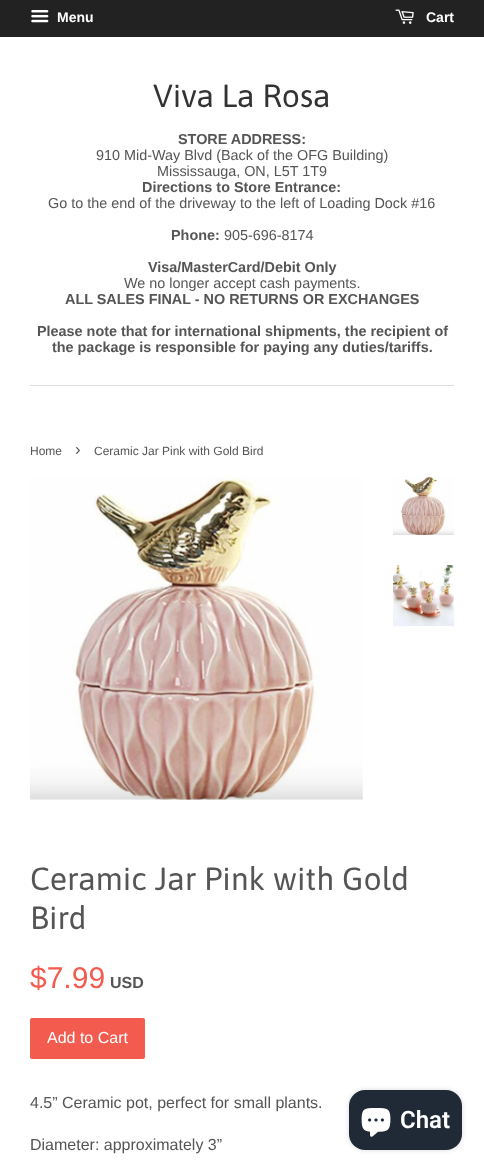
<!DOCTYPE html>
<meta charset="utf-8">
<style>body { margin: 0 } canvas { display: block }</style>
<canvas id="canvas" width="484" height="1171"></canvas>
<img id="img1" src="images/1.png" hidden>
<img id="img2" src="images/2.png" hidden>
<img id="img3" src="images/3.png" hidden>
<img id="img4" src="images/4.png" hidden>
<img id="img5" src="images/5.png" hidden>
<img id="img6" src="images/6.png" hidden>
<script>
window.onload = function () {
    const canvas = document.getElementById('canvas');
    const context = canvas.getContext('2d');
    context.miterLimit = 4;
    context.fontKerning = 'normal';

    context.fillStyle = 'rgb(255, 255, 255)';
    context.fillRect(0, 0, 484, 1171);
    context.fillStyle = 'rgb(34, 34, 34)';
    context.fillRect(0, 0, 484, 37);
    context.drawImage(document.getElementById('img1'), 31, 10, 18, 13);
    context.drawImage(document.getElementById('img2'), 395, 9, 19, 15);
    context.fillStyle = 'rgb(221, 221, 221)';
    context.fillRect(30, 385, 424, 1);
    context.drawImage(document.getElementById('img3'), 30, 476, 333, 324);
    context.drawImage(document.getElementById('img4'), 393, 476, 61, 59);
    context.drawImage(document.getElementById('img5'), 393, 565, 61, 61);
    context.fillStyle = 'rgb(244, 91, 79)';
    context.beginPath();
    context.roundRect(30, 1018, 115, 41, 2);
    context.fill();
    context.fillStyle = 'rgba(0, 0, 0, 0.15)';
    context.filter = 'blur(2.5px)';
    context.beginPath();
    context.roundRect(349, 1090, 113, 60, 16);
    context.fill();
    context.filter = 'none';
    context.fillStyle = 'rgb(32, 42, 54)';
    context.beginPath();
    context.roundRect(349, 1090, 113, 60, 16);
    context.fill();
    context.drawImage(document.getElementById('img6'), 361, 1108, 30, 29);
    context.font = 'bold 14px Liberation Sans';
    context.fillStyle = 'rgb(255, 255, 255)';
    context.fillText('Menu', 57, 22);
    context.fillText('Cart', 426, 22);
    context.font = '32px Asap';
    context.fillStyle = 'rgb(51, 51, 51)';
    context.fillText('Viva La Rosa', 153, 107);
    context.font = 'bold 14.4px Liberation Sans';
    context.fillStyle = 'rgb(85, 85, 85)';
    context.fillText('STORE ADDRESS:', 178, 144);
    context.font = '14.4px Liberation Sans';
    context.fillText('910 Mid-Way Blvd (Back of the OFG Building)', 96, 160);
    context.fillText('Mississauga, ON, L5T 1T9', 157, 176);
    context.font = 'bold 14.4px Liberation Sans';
    context.fillText('Directions to Store Entrance:', 142, 192);
    context.font = '14.4px Liberation Sans';
    context.fillText('Go to the end of the driveway to the left of Loading Dock #16', 48, 208);
    context.font = 'bold 14.4px Liberation Sans';
    context.fillText('Phone:', 171, 240);
    context.font = '14.4px Liberation Sans';
    context.fillText('905-696-8174', 224, 240);
    context.font = 'bold 14.4px Liberation Sans';
    context.fillText('Visa/MasterCard/Debit Only', 148, 272);
    context.font = '14.4px Liberation Sans';
    context.fillText('We no longer accept cash payments.', 124, 288);
    context.font = 'bold 14.4px Liberation Sans';
    context.fillText('ALL SALES FINAL - NO RETURNS OR EXCHANGES', 65, 304);
    context.fillText('Please note that for international shipments, the recipient of', 37, 336);
    context.fillText('the package is responsible for paying any duties/tariffs.', 52, 352);
    context.font = '12px Liberation Sans';
    context.fillText('Home', 30, 455);
    context.font = '17px Liberation Sans';
    context.fillText('›', 75, 455);
    context.font = '12px Liberation Sans';
    context.fillText('Ceramic Jar Pink with Gold Bird', 94, 455);
    context.font = '32px Asap';
    context.fillText('Ceramic Jar Pink with Gold', 30, 890);
    context.fillText('Bird', 30, 929);
    context.font = '30px Liberation Sans';
    context.fillStyle = 'rgb(244, 91, 79)';
    context.fillText('$7.99', 30, 988);
    context.font = 'bold 16px Liberation Sans';
    context.fillStyle = 'rgb(85, 85, 85)';
    context.fillText('USD', 110, 988);
    context.font = '16px Liberation Sans';
    context.fillStyle = 'rgb(255, 255, 255)';
    context.fillText('Add to Cart', 47, 1043);
    context.fillStyle = 'rgb(85, 85, 85)';
    context.fillText('4.5” Ceramic pot, perfect for small plants.', 30, 1108);
    context.fillText('Diameter: approximately 3”', 30, 1150);
    context.font = '600 24px Roboto';
    context.fillStyle = 'rgb(255, 255, 255)';
    context.fillText('Chat', 400, 1128);
};
</script>
